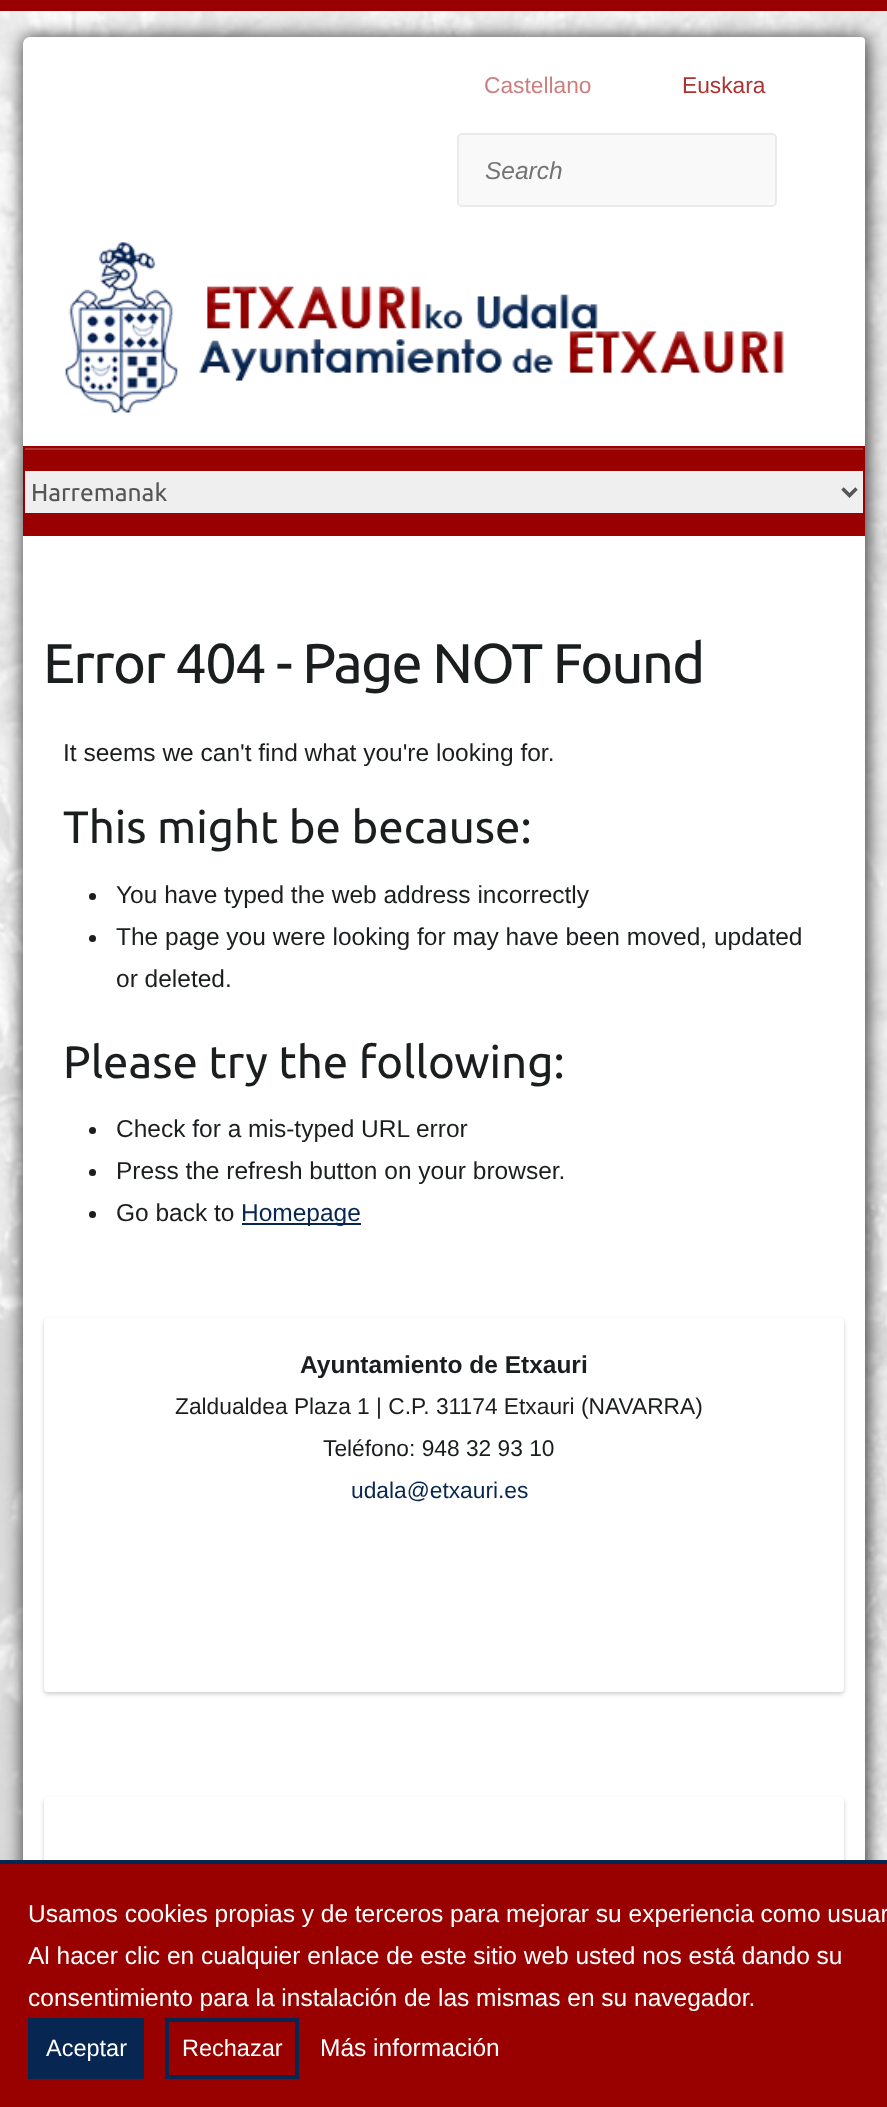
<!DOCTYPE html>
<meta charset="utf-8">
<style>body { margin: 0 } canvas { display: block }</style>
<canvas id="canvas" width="887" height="2107"></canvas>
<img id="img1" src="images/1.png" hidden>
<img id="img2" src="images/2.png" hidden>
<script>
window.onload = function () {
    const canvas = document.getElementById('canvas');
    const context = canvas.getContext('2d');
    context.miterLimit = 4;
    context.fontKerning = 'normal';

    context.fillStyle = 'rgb(255, 255, 255)';
    context.fillRect(0, 0, 887, 2107);
    context.drawImage(document.getElementById('img1'), 0, 11, 887, 1849);
    context.fillStyle = 'rgb(153, 0, 0)';
    context.fillRect(0, 0, 887, 11);
    context.fillStyle = 'rgba(0, 0, 0, 0.75)';
    context.filter = 'blur(9px)';
    context.beginPath();
    context.roundRect(23, 37, 845, 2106, 9);
    context.fill();
    context.filter = 'none';
    context.fillStyle = 'rgb(255, 255, 255)';
    context.beginPath();
    context.roundRect(23, 37, 842, 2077, 7);
    context.fill();
    context.beginPath();
    context.roundRect(431, 37, 434, 70, 4);
    context.fill();
    context.fillStyle = 'rgb(249, 249, 249)';
    context.beginPath();
    context.roundRect(458, 134, 318, 72, 4);
    context.fill();
    context.strokeStyle = 'rgb(234, 234, 234)';
    context.lineWidth = 2;
    context.stroke();
    context.drawImage(document.getElementById('img2'), 65, 242, 719, 171);
    context.fillStyle = 'rgb(153, 0, 0)';
    context.fillRect(23, 446, 842, 90);
    context.fillStyle = 'rgb(173, 51, 51)';
    context.fillRect(25, 448, 838, 2);
    context.fillStyle = 'rgb(239, 239, 239)';
    context.fillRect(25, 471, 838, 42);
    context.beginPath();
    context.moveTo(842.5, 488.5);
    context.lineTo(849.5, 495.5);
    context.lineTo(856.5, 488.5);
    context.strokeStyle = 'rgb(85, 85, 85)';
    context.lineWidth = 3.5;
    context.stroke();
    context.fillStyle = 'rgb(29, 29, 29)';
    context.beginPath();
    context.arc(92.5, 896.5, 3.5, 0, 2 * Math.PI);
    context.fill();
    context.beginPath();
    context.arc(92.5, 938.5, 3.5, 0, 2 * Math.PI);
    context.fill();
    context.beginPath();
    context.arc(92.5, 1130.5, 3.5, 0, 2 * Math.PI);
    context.fill();
    context.beginPath();
    context.arc(92.5, 1172.5, 3.5, 0, 2 * Math.PI);
    context.fill();
    context.beginPath();
    context.arc(92.5, 1214.5, 3.5, 0, 2 * Math.PI);
    context.fill();
    context.fillStyle = 'rgb(7, 38, 82)';
    context.fillRect(242, 1223, 119, 2);
    context.fillStyle = 'rgba(0, 0, 0, 0.2)';
    context.filter = 'blur(2px)';
    context.beginPath();
    context.roundRect(44, 1320, 800, 374, 4);
    context.fill();
    context.filter = 'none';
    context.fillStyle = 'rgb(255, 255, 255)';
    context.beginPath();
    context.roundRect(44, 1318, 800, 374, 4);
    context.fill();
    context.fillStyle = 'rgba(0, 0, 0, 0.2)';
    context.filter = 'blur(2px)';
    context.beginPath();
    context.roundRect(44, 1799, 800, 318, 4);
    context.fill();
    context.filter = 'none';
    context.fillStyle = 'rgb(255, 255, 255)';
    context.beginPath();
    context.roundRect(44, 1797, 800, 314, 4);
    context.fill();
    context.fillStyle = 'rgb(153, 0, 0)';
    context.fillRect(0, 1864, 887, 243);
    context.fillStyle = 'rgb(7, 38, 82)';
    context.fillRect(0, 1860, 887, 4);
    context.fillRect(28, 2018, 116, 61);
    context.strokeStyle = 'rgb(7, 38, 82)';
    context.lineWidth = 4;
    context.strokeRect(167, 2020, 130, 57);
    context.font = '22.75px Liberation Sans';
    context.fillStyle = 'rgb(204, 128, 128)';
    context.fillText('Castellano', 484, 93);
    context.fillStyle = 'rgb(173, 51, 51)';
    context.fillText('Euskara', 682, 93);
    context.font = 'italic 24.5px Liberation Sans';
    context.fillStyle = 'rgb(117, 117, 117)';
    context.fillText('Search', 485, 179);
    context.font = '24.5px Ubuntu';
    context.fillStyle = 'rgb(85, 85, 85)';
    context.fillText('Harremanak', 31, 501);
    context.letterSpacing = '-1.75px';
    context.font = '56px Ubuntu';
    context.fillStyle = 'rgb(27, 30, 31)';
    context.fillText('Error 404 - Page NOT Found', 43, 683);
    context.letterSpacing = '0px';
    context.font = '24.5px Liberation Sans';
    context.fillText('It seems we can\'t find what you\'re looking for.', 63, 761);
    context.font = '45.5px Ubuntu';
    context.fillText('This might be because:', 63, 843);
    context.font = '24.5px Liberation Sans';
    context.fillText('You have typed the web address incorrectly', 116, 903);
    context.fillText('The page you were looking for may have been moved, updated', 116, 945);
    context.fillText('or deleted.', 116, 987);
    context.font = '45.5px Ubuntu';
    context.fillText('Please try the following:', 63, 1078);
    context.font = '24.5px Liberation Sans';
    context.fillText('Check for a mis-typed URL error', 116, 1137);
    context.fillText('Press the refresh button on your browser.', 116, 1179);
    context.fillText('Go back to', 116, 1221);
    context.fillStyle = 'rgb(7, 38, 82)';
    context.fillText('Homepage', 241, 1221);
    context.font = 'bold 24.5px Liberation Sans';
    context.fillStyle = 'rgb(27, 30, 31)';
    context.fillText('Ayuntamiento de Etxauri', 300, 1373);
    context.font = '22.75px Liberation Sans';
    context.fillText('Zaldualdea Plaza 1 | C.P. 31174 Etxauri (NAVARRA)', 175, 1414);
    context.fillText('Teléfono: 948 32 93 10', 323, 1456);
    context.fillStyle = 'rgb(7, 38, 82)';
    context.fillText('udala@etxauri.es', 351, 1498);
    context.font = '24.5px Liberation Sans';
    context.fillStyle = 'rgb(255, 255, 255)';
    context.fillText('Usamos cookies propias y de terceros para mejorar su experiencia como usuar', 28, 1922);
    context.fillText('Al hacer clic en cualquier enlace de este sitio web usted nos está dando su', 28, 1964);
    context.fillText('consentimiento para la instalación de las mismas en su navegador.', 28, 2006);
    context.font = '23.5px Liberation Sans';
    context.fillText('Aceptar', 46, 2056);
    context.fillText('Rechazar', 182, 2056);
    context.font = '24.5px Liberation Sans';
    context.fillText('Más información', 320, 2056);
};
</script>
